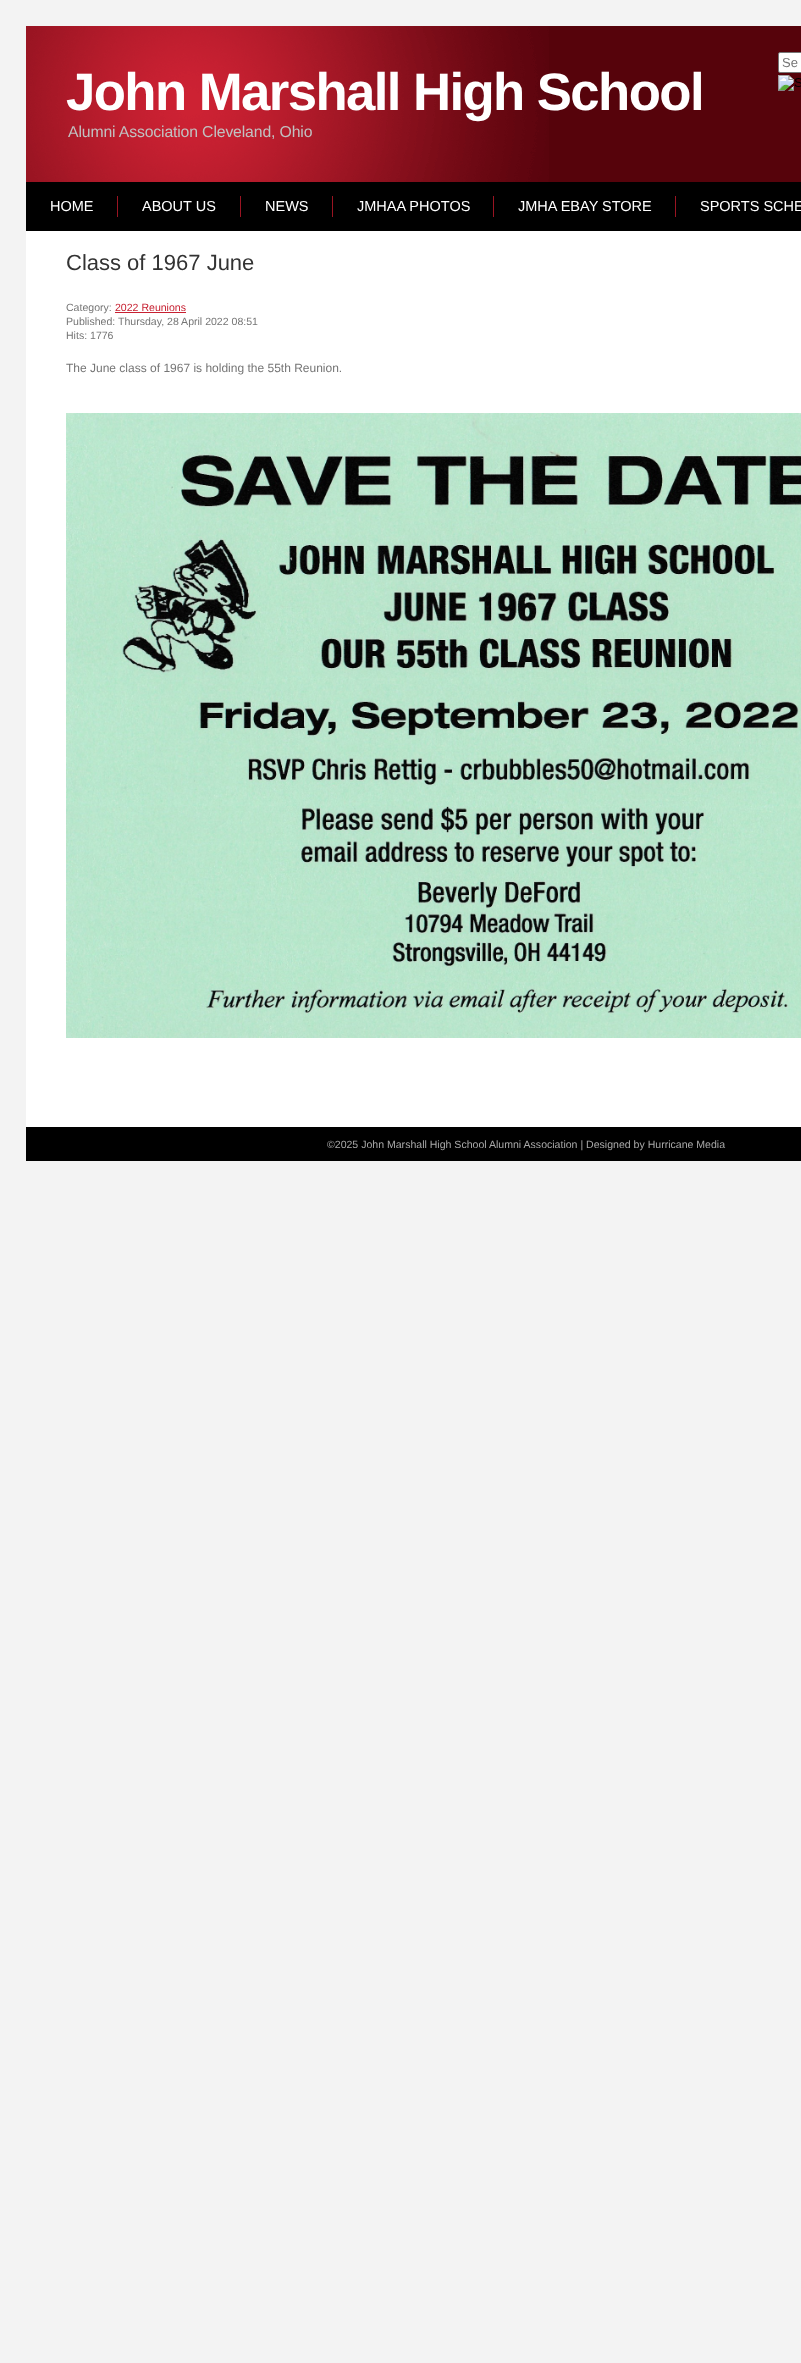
<!DOCTYPE html>
<meta charset="utf-8">
<style>body { margin: 0 } canvas { display: block }</style>
<canvas id="canvas" width="801" height="2363"></canvas>
<img id="img1" src="images/1.png" hidden>
<img id="img2" src="images/2.png" hidden>
<img id="img3" src="images/3.png" hidden>
<script>
window.onload = function () {
    const canvas = document.getElementById('canvas');
    const context = canvas.getContext('2d');
    context.miterLimit = 4;
    context.fontKerning = 'normal';

    context.fillStyle = 'rgb(243, 243, 243)';
    context.fillRect(0, 0, 801, 2363);
    context.fillStyle = 'rgb(86, 3, 11)';
    context.fillRect(549, 26, 252, 156);
    context.drawImage(document.getElementById('img1'), 26, 26, 523, 156);
    context.fillStyle = 'rgb(255, 255, 255)';
    context.beginPath();
    context.roundRect(778.5, 52.5, 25, 20, 1.5);
    context.fill();
    context.strokeStyle = 'rgb(118, 118, 118)';
    context.stroke();
    context.drawImage(document.getElementById('img2'), 778, 75, 23, 16);
    context.fillStyle = 'rgb(0, 0, 0)';
    context.fillRect(26, 182, 775, 49);
    context.fillStyle = 'rgb(154, 20, 34)';
    context.fillRect(117, 196, 1, 21);
    context.fillRect(240, 196, 1, 21);
    context.fillRect(332, 196, 1, 21);
    context.fillRect(493, 196, 1, 21);
    context.fillRect(675, 196, 1, 21);
    context.fillStyle = 'rgb(255, 255, 255)';
    context.fillRect(26, 231, 775, 896);
    context.fillStyle = 'rgb(199, 32, 49)';
    context.fillRect(115, 312, 71, 1);
    context.drawImage(document.getElementById('img3'), 66, 413, 735, 625);
    context.fillStyle = 'rgb(0, 0, 0)';
    context.fillRect(26, 1127, 775, 34);
    context.font = '13px Liberation Sans';
    context.fillStyle = 'rgb(117, 117, 117)';
    context.fillText('Se', 782, 67);
    context.letterSpacing = '-1.6px';
    context.font = 'bold 52.75px Liberation Sans';
    context.fillStyle = 'rgb(255, 255, 255)';
    context.fillText('John Marshall High School', 66, 110);
    context.letterSpacing = '-0.15px';
    context.font = '15.8px Liberation Sans';
    context.fillStyle = 'rgb(193, 193, 193)';
    context.fillText('Alumni Association Cleveland, Ohio', 68, 137);
    context.letterSpacing = '0px';
    context.font = '14.5px Liberation Sans';
    context.fillStyle = 'rgb(255, 255, 255)';
    context.fillText('HOME', 50, 211);
    context.fillText('ABOUT US', 142, 211);
    context.fillText('NEWS', 265, 211);
    context.fillText('JMHAA PHOTOS', 357, 211);
    context.fillText('JMHA EBAY STORE', 518, 211);
    context.fillText('SPORTS SCHE', 700, 211);
    context.font = '22px Liberation Sans';
    context.fillStyle = 'rgb(51, 51, 51)';
    context.fillText('Class of 1967 June', 66, 270);
    context.font = '10.55px Liberation Sans';
    context.fillStyle = 'rgb(117, 117, 117)';
    context.fillText('Category:', 66, 311);
    context.fillStyle = 'rgb(199, 32, 49)';
    context.fillText('2022 Reunions', 115, 311);
    context.fillStyle = 'rgb(117, 117, 117)';
    context.fillText('Published: Thursday, 28 April 2022 08:51', 66, 325);
    context.fillText('Hits: 1776', 66, 339);
    context.font = '12px Liberation Sans';
    context.fillText('The June class of 1967 is holding the 55th Reunion.', 66, 372);
    context.font = '10.55px Liberation Sans';
    context.fillStyle = 'rgb(169, 169, 169)';
    context.fillText('©2025 John Marshall High School Alumni Association | Designed by Hurricane Media', 327, 1148);
};
</script>
